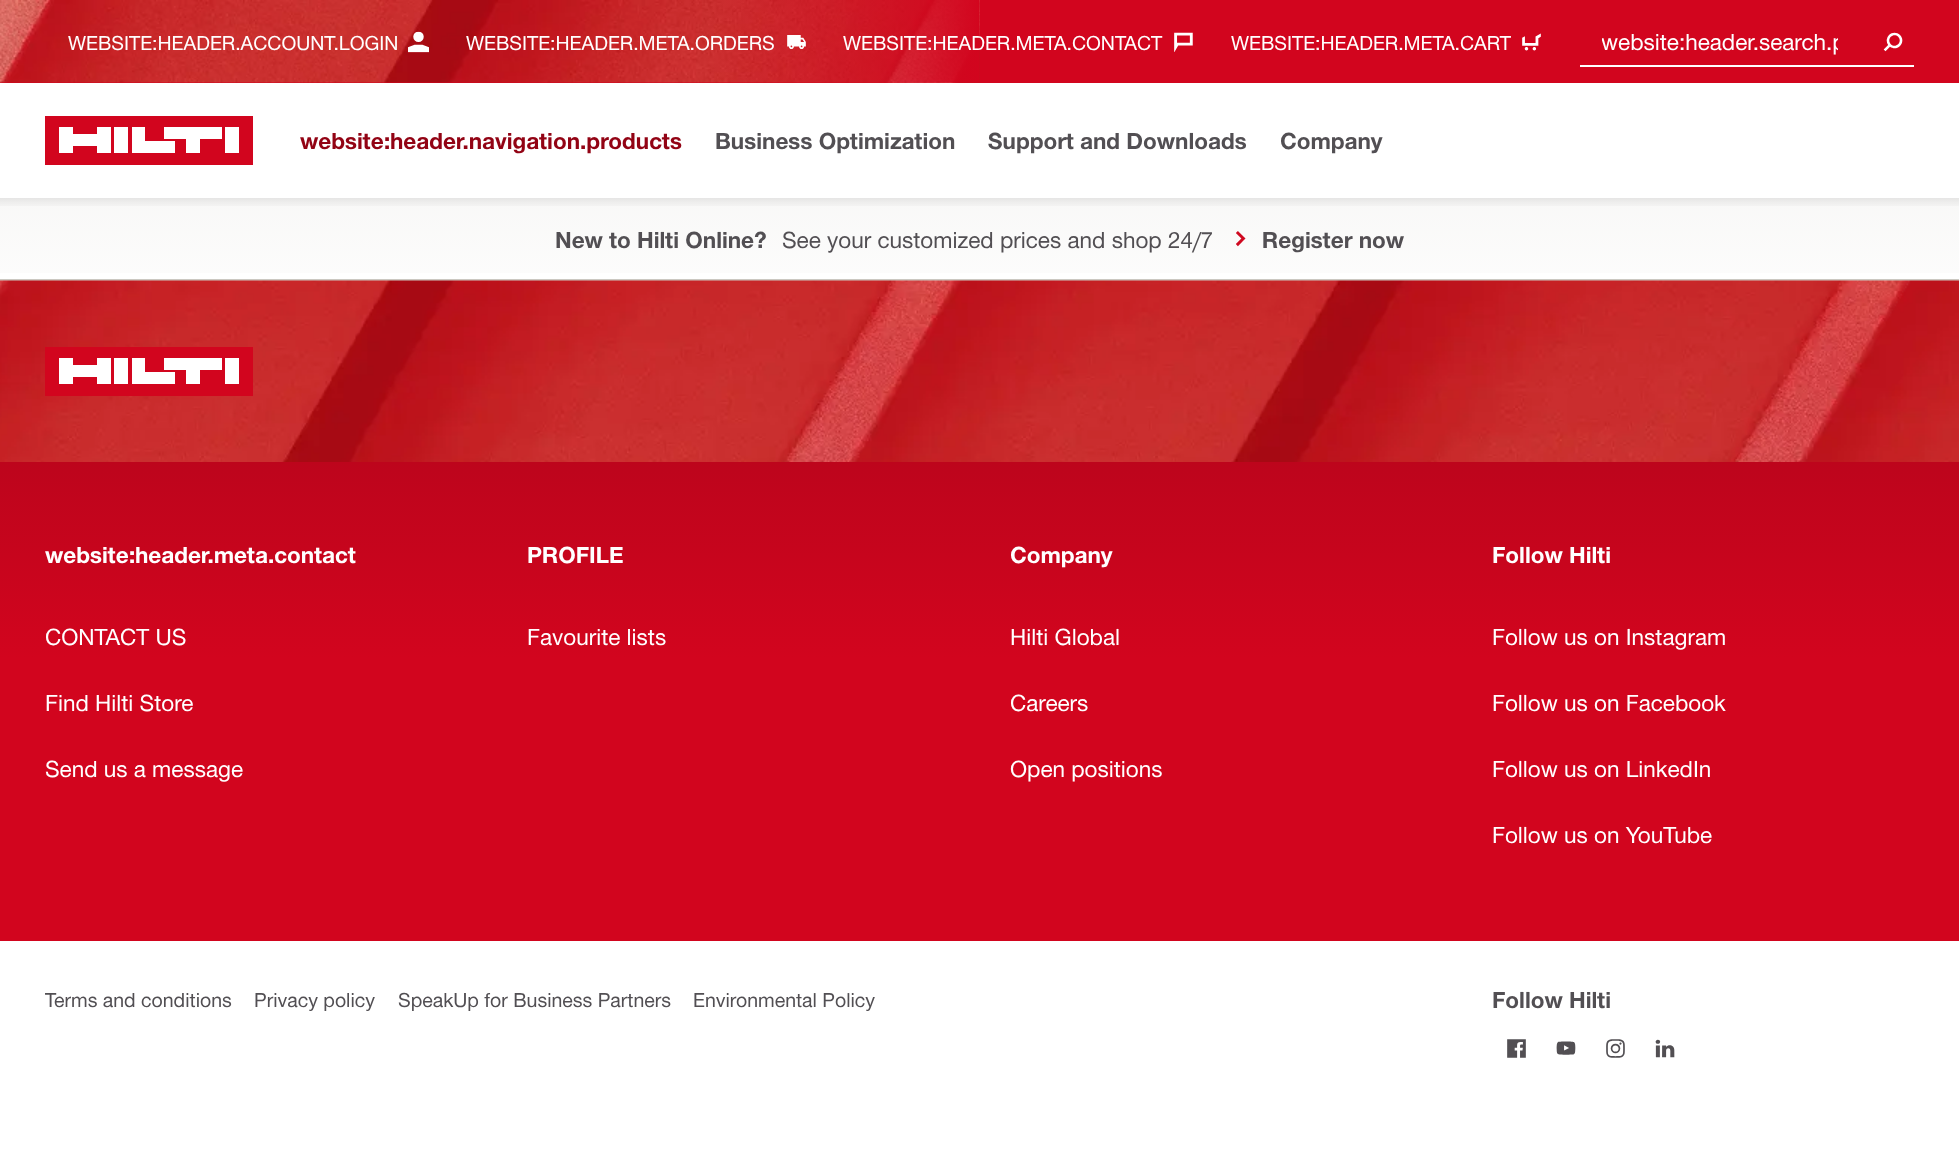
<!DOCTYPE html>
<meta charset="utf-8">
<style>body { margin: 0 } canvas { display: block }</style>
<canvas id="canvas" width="1959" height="1149"></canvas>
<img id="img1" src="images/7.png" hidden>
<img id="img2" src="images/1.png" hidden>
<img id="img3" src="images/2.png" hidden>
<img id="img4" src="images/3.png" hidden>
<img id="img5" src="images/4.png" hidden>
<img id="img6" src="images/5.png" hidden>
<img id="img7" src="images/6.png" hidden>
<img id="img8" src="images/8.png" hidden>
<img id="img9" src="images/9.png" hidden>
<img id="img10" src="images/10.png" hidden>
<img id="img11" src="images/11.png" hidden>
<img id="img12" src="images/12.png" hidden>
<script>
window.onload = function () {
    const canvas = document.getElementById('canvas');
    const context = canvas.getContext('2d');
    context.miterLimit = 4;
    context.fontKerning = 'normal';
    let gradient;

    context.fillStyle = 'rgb(255, 255, 255)';
    context.fillRect(0, 0, 1959, 1149);
    context.drawImage(document.getElementById('img1'), 1236, 231, 10, 16);
    gradient = context.createLinearGradient(980, 198, 980, 330);
    gradient.addColorStop(0, 'rgba(125, 117, 101, 0.05)');
    gradient.addColorStop(1, 'rgba(125, 117, 101, 0)');
    context.fillStyle = gradient;
    context.fillRect(0, 198, 1959, 75);
    context.save();
    context.beginPath();
    context.rect(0, 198, 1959, 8);
    context.clip();
    context.fillStyle = 'rgba(0, 0, 0, 0.15)';
    context.filter = 'blur(7.5px)';
    context.beginPath();
    context.rect(-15, -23, 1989, 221);
    context.fill();
    context.filter = 'none';
    context.restore();
    context.fillStyle = 'rgb(210, 5, 30)';
    context.fillRect(0, 0, 1959, 83);
    context.drawImage(document.getElementById('img2'), 0, 0, 980, 83);
    context.drawImage(document.getElementById('img3'), 408, 31, 21, 22);
    context.drawImage(document.getElementById('img4'), 787, 35, 19, 14);
    context.drawImage(document.getElementById('img5'), 1174, 32, 19, 20);
    context.drawImage(document.getElementById('img6'), 1522, 33, 19, 18);
    context.fillStyle = 'rgb(255, 255, 255)';
    context.fillRect(1580, 65, 334, 2);
    context.drawImage(document.getElementById('img7'), 1883, 32, 20, 20);
    context.fillStyle = 'rgb(210, 5, 30)';
    context.fillRect(45, 116, 208, 49);
    context.fillStyle = 'rgb(255, 255, 255)';
    context.beginPath();
    context.moveTo(128, 153);
    context.lineTo(114, 153);
    context.lineTo(114, 127);
    context.lineTo(128, 127);
    context.closePath();
    context.moveTo(239, 127);
    context.lineTo(225, 127);
    context.lineTo(225, 153);
    context.lineTo(239, 153);
    context.closePath();
    context.moveTo(59, 153);
    context.lineTo(73, 153);
    context.lineTo(73, 146);
    context.lineTo(97, 146);
    context.lineTo(97, 153);
    context.lineTo(111, 153);
    context.lineTo(111, 127);
    context.lineTo(97, 127);
    context.lineTo(97, 134);
    context.lineTo(73, 134);
    context.lineTo(73, 127);
    context.lineTo(59, 127);
    context.closePath();
    context.moveTo(132, 153);
    context.lineTo(175, 153);
    context.lineTo(175, 141);
    context.lineTo(145, 141);
    context.lineTo(145, 127);
    context.lineTo(132, 127);
    context.closePath();
    context.moveTo(164, 139);
    context.lineTo(186, 139);
    context.lineTo(186, 153);
    context.lineTo(200, 153);
    context.lineTo(200, 139);
    context.lineTo(222, 139);
    context.lineTo(222, 127);
    context.lineTo(164, 127);
    context.closePath();
    context.fill();
    context.fillStyle = 'rgb(203, 200, 193)';
    context.fillRect(0, 279, 1959, 2);
    context.drawImage(document.getElementById('img8'), 0, 280, 1959, 182);
    context.fillStyle = 'rgb(210, 5, 30)';
    context.fillRect(45, 347, 208, 49);
    context.fillStyle = 'rgb(255, 255, 255)';
    context.beginPath();
    context.moveTo(128, 384);
    context.lineTo(114, 384);
    context.lineTo(114, 358);
    context.lineTo(128, 358);
    context.closePath();
    context.moveTo(239, 358);
    context.lineTo(225, 358);
    context.lineTo(225, 384);
    context.lineTo(239, 384);
    context.closePath();
    context.moveTo(59, 384);
    context.lineTo(73, 384);
    context.lineTo(73, 377);
    context.lineTo(97, 377);
    context.lineTo(97, 384);
    context.lineTo(111, 384);
    context.lineTo(111, 358);
    context.lineTo(97, 358);
    context.lineTo(97, 365);
    context.lineTo(73, 365);
    context.lineTo(73, 358);
    context.lineTo(59, 358);
    context.closePath();
    context.moveTo(132, 384);
    context.lineTo(175, 384);
    context.lineTo(175, 372);
    context.lineTo(145, 372);
    context.lineTo(145, 358);
    context.lineTo(132, 358);
    context.closePath();
    context.moveTo(164, 370);
    context.lineTo(186, 370);
    context.lineTo(186, 384);
    context.lineTo(200, 384);
    context.lineTo(200, 370);
    context.lineTo(222, 370);
    context.lineTo(222, 358);
    context.lineTo(164, 358);
    context.closePath();
    context.fill();
    gradient = context.createLinearGradient(980, 462, 980, 941);
    gradient.addColorStop(0, 'rgb(189, 5, 28)');
    gradient.addColorStop(0.41, 'rgb(210, 5, 30)');
    context.fillStyle = gradient;
    context.fillRect(0, 462, 1959, 479);
    context.drawImage(document.getElementById('img9'), 1507, 1039, 19, 19);
    context.drawImage(document.getElementById('img10'), 1556, 1041, 20, 14);
    context.drawImage(document.getElementById('img11'), 1606, 1039, 19, 19);
    context.drawImage(document.getElementById('img12'), 1655, 1039, 20, 19);
    context.font = '19.5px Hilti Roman';
    context.fillStyle = 'rgb(255, 255, 255)';
    context.fillText('WEBSITE:HEADER.ACCOUNT.LOGIN', 68, 50);
    context.fillText('WEBSITE:HEADER.META.ORDERS', 466, 50);
    context.fillText('WEBSITE:HEADER.META.CONTACT', 843, 50);
    context.fillText('WEBSITE:HEADER.META.CART', 1231, 50);
    context.save();
    context.beginPath();
    context.rect(1602, 29, 236, 27);
    context.clip();
    context.font = '22.5px Hilti Roman';
    context.fillText('website:header.search.p', 1601, 50);
    context.restore();
    context.font = 'bold 22.5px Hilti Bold';
    context.fillStyle = 'rgb(146, 3, 20)';
    context.fillText('website:header.navigation.products', 300, 149);
    context.fillStyle = 'rgb(82, 79, 83)';
    context.fillText('Business Optimization', 715, 149);
    context.fillText('Support and Downloads', 988, 149);
    context.fillText('Company', 1280, 149);
    context.fillText('New to Hilti Online?', 555, 248);
    context.font = '22.5px Hilti Roman';
    context.fillText('See your customized prices and shop 24/7', 782, 248);
    context.font = 'bold 22.5px Hilti Bold';
    context.fillText('Register now', 1262, 248);
    context.fillStyle = 'rgb(255, 255, 255)';
    context.fillText('website:header.meta.contact', 45, 563);
    context.font = '22.5px Hilti Roman';
    context.fillText('CONTACT US', 45, 645);
    context.fillText('Find Hilti Store', 45, 711);
    context.fillText('Send us a message', 45, 777);
    context.font = 'bold 22.5px Hilti Bold';
    context.fillText('PROFILE', 527, 563);
    context.font = '22.5px Hilti Roman';
    context.fillText('Favourite lists', 527, 645);
    context.font = 'bold 22.5px Hilti Bold';
    context.fillText('Company', 1010, 563);
    context.font = '22.5px Hilti Roman';
    context.fillText('Hilti Global', 1010, 645);
    context.fillText('Careers', 1010, 711);
    context.fillText('Open positions', 1010, 777);
    context.font = 'bold 22.5px Hilti Bold';
    context.fillText('Follow Hilti', 1492, 563);
    context.font = '22.5px Hilti Roman';
    context.fillText('Follow us on Instagram', 1492, 645);
    context.fillText('Follow us on Facebook', 1492, 711);
    context.fillText('Follow us on LinkedIn', 1492, 777);
    context.fillText('Follow us on YouTube', 1492, 843);
    context.font = '19.5px Hilti Roman';
    context.fillStyle = 'rgb(82, 79, 83)';
    context.fillText('Terms and conditions', 45, 1007);
    context.fillText('Privacy policy', 254, 1007);
    context.fillText('SpeakUp for Business Partners', 398, 1007);
    context.fillText('Environmental Policy', 693, 1007);
    context.font = 'bold 22.5px Hilti Bold';
    context.fillText('Follow Hilti', 1492, 1008);
};
</script>
